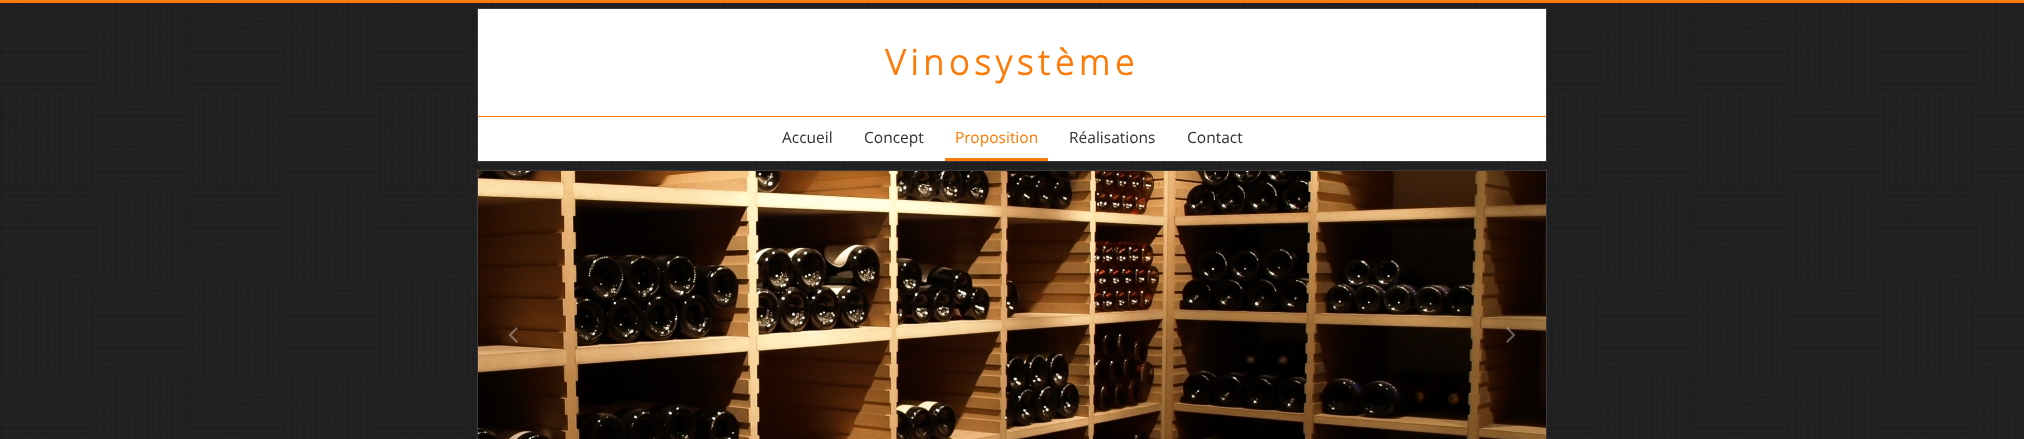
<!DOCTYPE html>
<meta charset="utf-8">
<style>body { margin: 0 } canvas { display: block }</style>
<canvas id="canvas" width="2024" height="439"></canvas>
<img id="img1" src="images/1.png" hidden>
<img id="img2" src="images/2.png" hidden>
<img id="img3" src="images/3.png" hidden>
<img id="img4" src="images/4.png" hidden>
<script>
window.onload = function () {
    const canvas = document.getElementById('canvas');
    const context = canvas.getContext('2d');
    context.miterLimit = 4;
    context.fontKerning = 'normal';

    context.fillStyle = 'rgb(31, 31, 31)';
    context.fillRect(0, 0, 2024, 439);
    context.drawImage(document.getElementById('img1'), 2, 3, 2022, 436);
    context.fillStyle = 'rgb(253, 123, 7)';
    context.fillRect(0, 0, 2024, 3);
    context.fillStyle = 'rgb(255, 255, 255)';
    context.beginPath();
    context.rect(477.5, 8.5, 1069, 153);
    context.fill();
    context.strokeStyle = 'rgb(57, 57, 57)';
    context.stroke();
    context.fillStyle = 'rgb(253, 123, 7)';
    context.fillRect(478, 116, 1068, 1);
    context.fillRect(945, 158, 103, 3);
    context.strokeRect(477.5, 170.5, 1069, 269);
    context.drawImage(document.getElementById('img2'), 478, 171, 1068, 268);
    context.drawImage(document.getElementById('img3'), 508, 327, 10, 16);
    context.drawImage(document.getElementById('img4'), 1506, 327, 10, 16);
    context.letterSpacing = '5px';
    context.font = 'bold 35px Open Sans';
    context.fillText('Vinosystème', 885, 75);
    context.letterSpacing = '0px';
    context.font = '15.5px Open Sans';
    context.fillStyle = 'rgb(49, 49, 49)';
    context.fillText('Accueil', 782, 143);
    context.fillText('Concept', 864, 143);
    context.fillStyle = 'rgb(253, 123, 7)';
    context.fillText('Proposition', 955, 143);
    context.fillStyle = 'rgb(49, 49, 49)';
    context.fillText('Réalisations', 1069, 143);
    context.fillText('Contact', 1187, 143);
};
</script>
